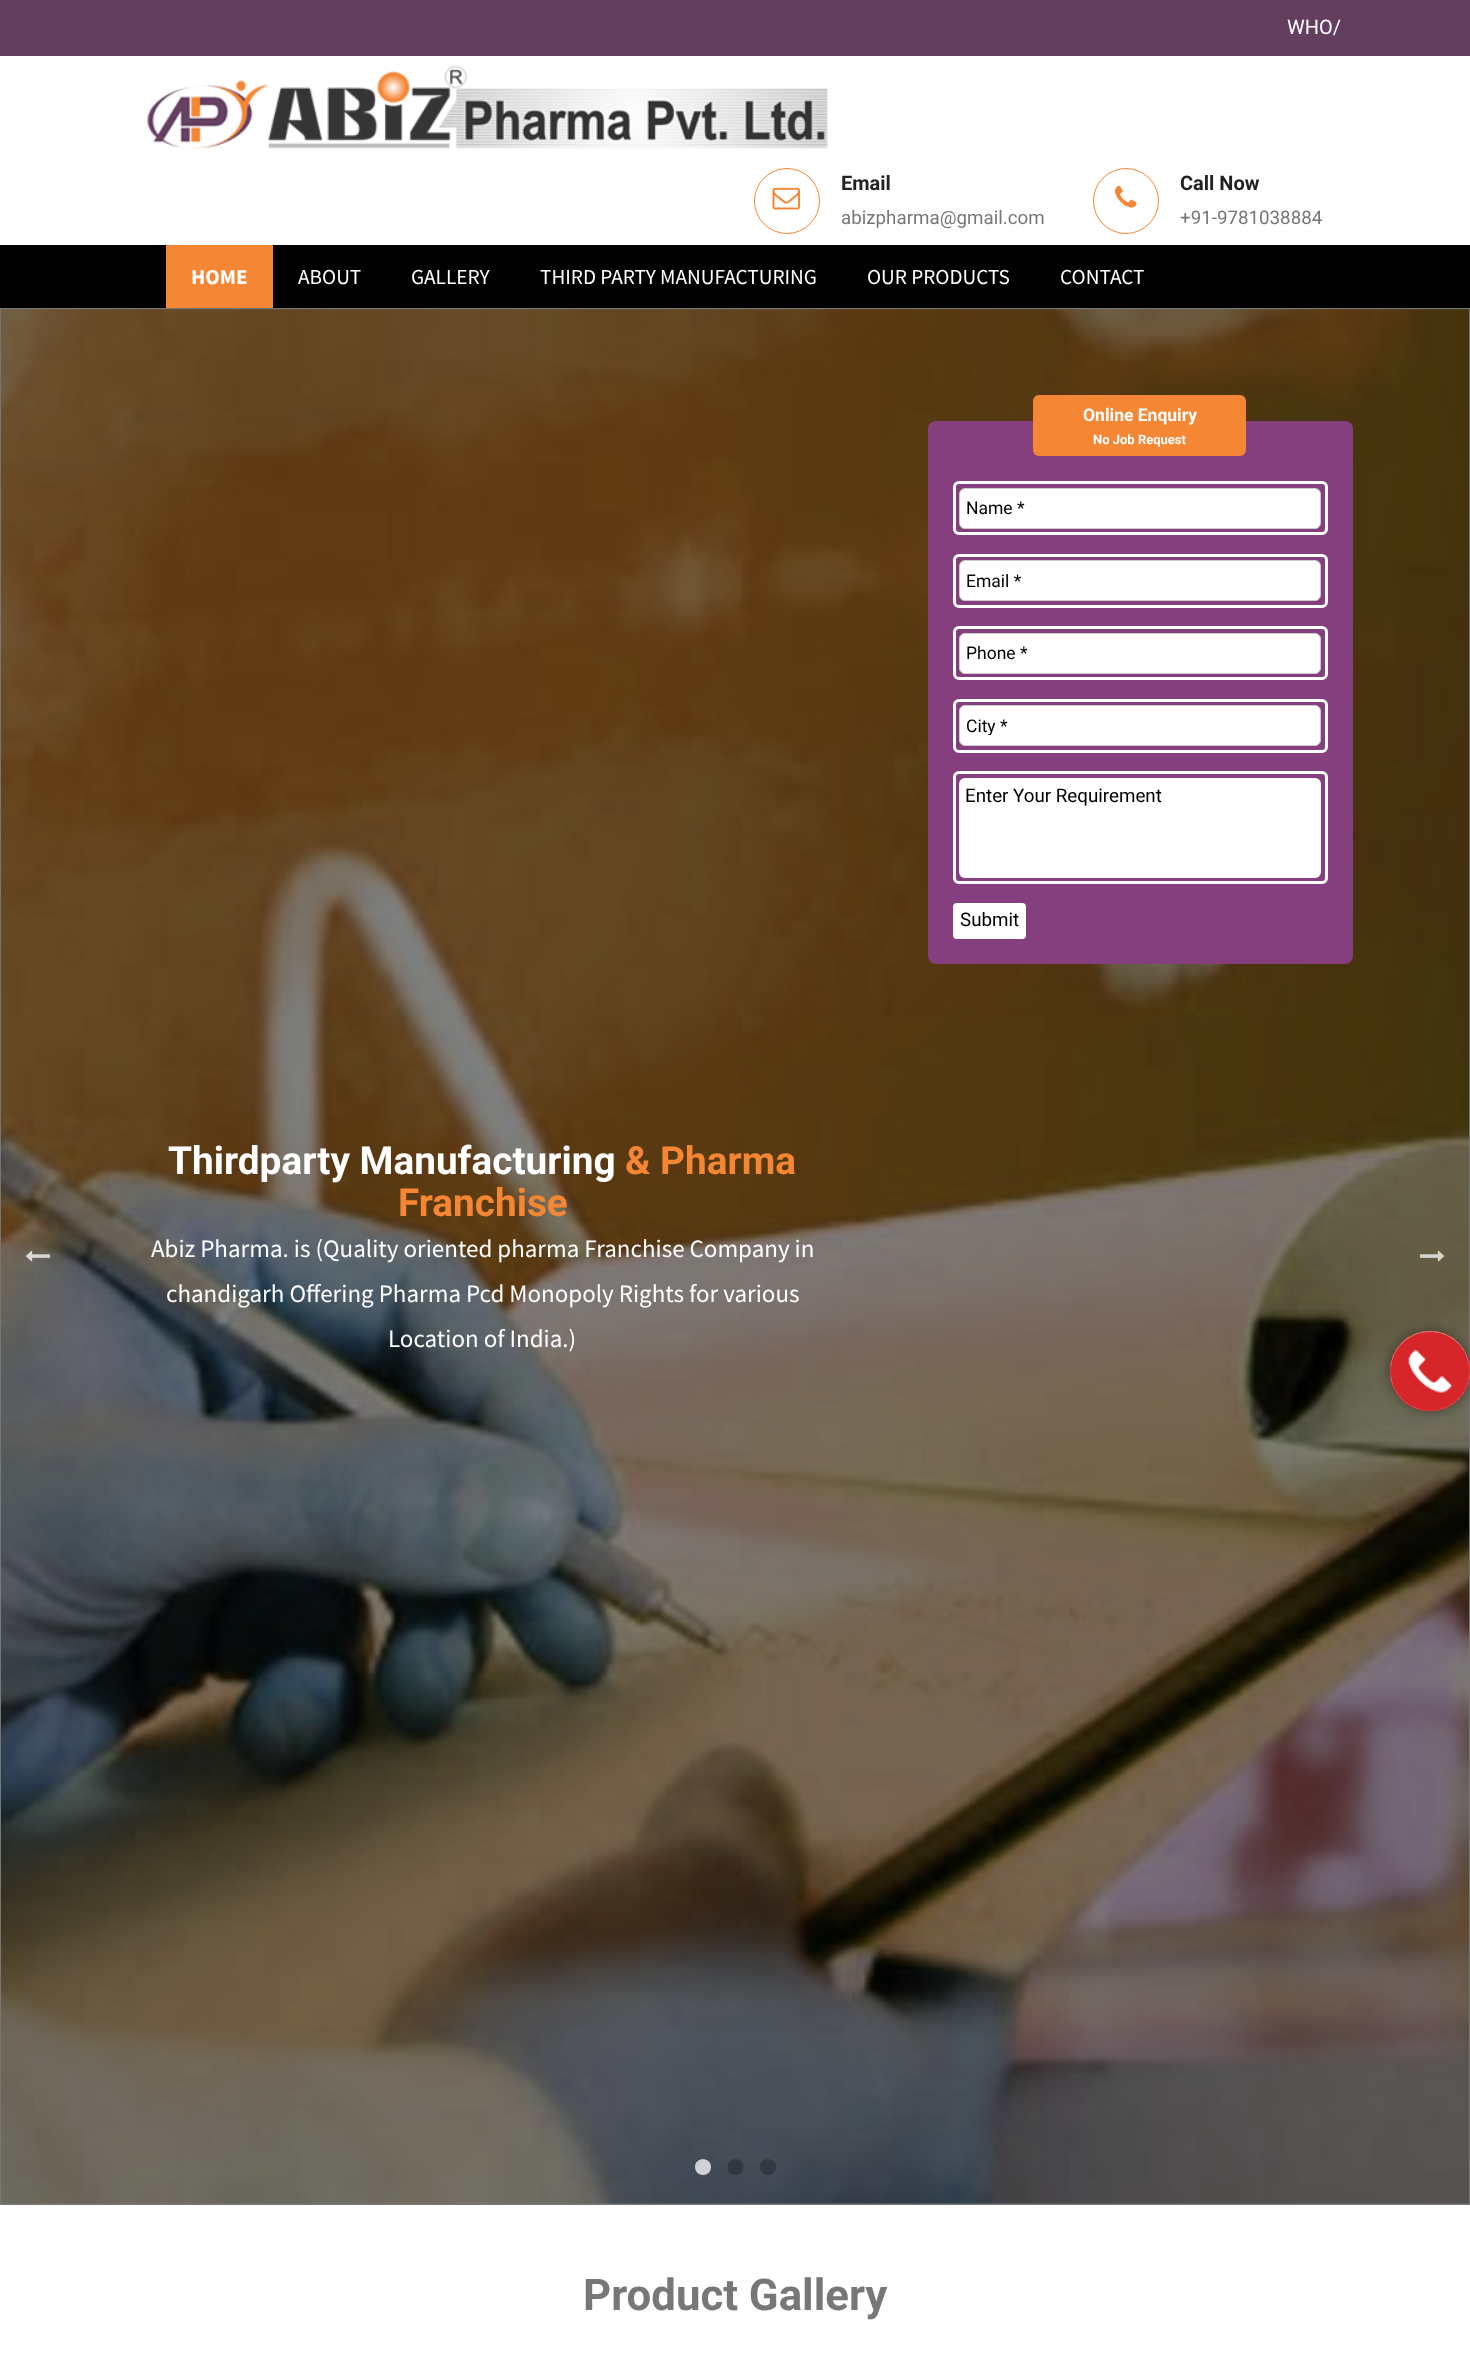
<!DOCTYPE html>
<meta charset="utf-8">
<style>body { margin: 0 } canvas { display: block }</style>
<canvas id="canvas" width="1470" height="2372"></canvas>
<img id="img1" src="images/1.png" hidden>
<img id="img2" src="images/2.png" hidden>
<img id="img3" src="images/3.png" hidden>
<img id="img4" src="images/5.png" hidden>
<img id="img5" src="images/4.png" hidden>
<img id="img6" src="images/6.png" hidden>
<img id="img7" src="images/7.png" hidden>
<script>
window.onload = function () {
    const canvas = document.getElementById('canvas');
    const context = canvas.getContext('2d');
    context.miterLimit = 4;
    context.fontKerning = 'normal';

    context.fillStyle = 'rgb(255, 255, 255)';
    context.fillRect(0, 0, 1470, 2372);
    context.fillStyle = 'rgb(128, 128, 128)';
    context.fillRect(1, 309, 1468, 1895);
    context.fillStyle = 'rgb(99, 62, 95)';
    context.fillRect(0, 0, 1470, 56);
    context.drawImage(document.getElementById('img1'), 147, 66, 681, 83);
    context.beginPath();
    context.arc(787, 201, 32.5, 0, 2 * Math.PI);
    context.strokeStyle = 'rgb(245, 134, 52)';
    context.stroke();
    context.drawImage(document.getElementById('img2'), 772, 187, 28, 23);
    context.beginPath();
    context.arc(1126, 201, 32.5, 0, 2 * Math.PI);
    context.stroke();
    context.drawImage(document.getElementById('img3'), 1115, 185, 22, 23);
    context.fillStyle = 'rgb(0, 0, 0)';
    context.fillRect(0, 245, 1470, 63);
    context.fillStyle = 'rgb(245, 134, 52)';
    context.fillRect(166, 245, 107, 63);
    context.drawImage(document.getElementById('img4'), 1, 309, 1468, 1895);
    context.strokeStyle = 'rgb(119, 119, 119)';
    context.strokeRect(0.5, 308.5, 1469, 1896);
    context.fillStyle = 'rgb(134, 63, 126)';
    context.beginPath();
    context.roundRect(928, 421, 425, 543, 8);
    context.fill();
    context.fillStyle = 'rgb(245, 134, 52)';
    context.beginPath();
    context.roundRect(1033, 395, 213, 61, 6);
    context.fill();
    context.beginPath();
    context.roundRect(954.5, 482.5, 372, 51, 4.5);
    context.strokeStyle = 'rgb(255, 255, 255)';
    context.lineWidth = 3;
    context.stroke();
    context.fillStyle = 'rgb(255, 255, 255)';
    context.beginPath();
    context.roundRect(959.5, 488.5, 361, 40, 5.5);
    context.fill();
    context.strokeStyle = 'rgb(204, 204, 204)';
    context.lineWidth = 1;
    context.stroke();
    context.beginPath();
    context.roundRect(954.5, 555.5, 372, 51, 4.5);
    context.strokeStyle = 'rgb(255, 255, 255)';
    context.lineWidth = 3;
    context.stroke();
    context.beginPath();
    context.roundRect(959.5, 560.5, 361, 40, 5.5);
    context.fill();
    context.strokeStyle = 'rgb(204, 204, 204)';
    context.lineWidth = 1;
    context.stroke();
    context.beginPath();
    context.roundRect(954.5, 627.5, 372, 51, 4.5);
    context.strokeStyle = 'rgb(255, 255, 255)';
    context.lineWidth = 3;
    context.stroke();
    context.beginPath();
    context.roundRect(959.5, 633.5, 361, 40, 5.5);
    context.fill();
    context.strokeStyle = 'rgb(204, 204, 204)';
    context.lineWidth = 1;
    context.stroke();
    context.beginPath();
    context.roundRect(954.5, 700.5, 372, 51, 4.5);
    context.strokeStyle = 'rgb(255, 255, 255)';
    context.lineWidth = 3;
    context.stroke();
    context.beginPath();
    context.roundRect(959.5, 705.5, 361, 40, 5.5);
    context.fill();
    context.strokeStyle = 'rgb(204, 204, 204)';
    context.lineWidth = 1;
    context.stroke();
    context.beginPath();
    context.roundRect(954.5, 772.5, 372, 110, 4.5);
    context.strokeStyle = 'rgb(255, 255, 255)';
    context.lineWidth = 3;
    context.stroke();
    context.beginPath();
    context.roundRect(959, 778, 362, 100, 6);
    context.fill();
    context.beginPath();
    context.roundRect(953, 903, 73, 36, 4);
    context.fill();
    context.drawImage(document.getElementById('img5'), 26, 1250, 24, 12);
    context.drawImage(document.getElementById('img6'), 1420, 1250, 24, 12);
    context.fillStyle = 'rgb(208, 210, 213)';
    context.beginPath();
    context.moveTo(711, 2167);
    context.bezierCurveTo(711, 2156.5, 695, 2156.5, 695, 2167);
    context.bezierCurveTo(695, 2177.5, 711, 2177.5, 711, 2167);
    context.closePath();
    context.fill();
    context.fillStyle = 'rgba(0, 0, 0, 0.25)';
    context.beginPath();
    context.moveTo(743.5, 2167);
    context.bezierCurveTo(743.5, 2156.5, 727.5, 2156.5, 727.5, 2167);
    context.bezierCurveTo(727.5, 2177.5, 743.5, 2177.5, 743.5, 2167);
    context.closePath();
    context.fill();
    context.fillStyle = 'rgb(52, 56, 66)';
    context.beginPath();
    context.moveTo(776, 2167);
    context.bezierCurveTo(776, 2156.5, 760, 2156.5, 760, 2167);
    context.bezierCurveTo(760, 2177.5, 776, 2177.5, 776, 2167);
    context.closePath();
    context.fill();
    context.fillStyle = 'rgba(0, 0, 0, 0.46)';
    context.filter = 'blur(8px)';
    context.beginPath();
    context.roundRect(1390, 1331, 80, 80, 40);
    context.fill();
    context.filter = 'none';
    context.fillStyle = 'rgb(255, 255, 255)';
    context.beginPath();
    context.arc(1430, 1371, 40, 0, 2 * Math.PI);
    context.fill();
    context.drawImage(document.getElementById('img7'), 1390, 1331, 80, 80);
    context.font = '20px Roboto';
    context.fillText('WHO/', 1287, 34);
    context.font = 'bold 20px Roboto';
    context.fillStyle = 'rgb(34, 34, 34)';
    context.fillText('Email', 841, 190);
    context.font = '18.75px Roboto';
    context.fillStyle = 'rgb(119, 119, 119)';
    context.fillText('abizpharma@gmail.com', 841, 224);
    context.font = 'bold 20px Roboto';
    context.fillStyle = 'rgb(34, 34, 34)';
    context.fillText('Call Now', 1180, 190);
    context.font = '18.75px Roboto';
    context.fillStyle = 'rgb(119, 119, 119)';
    context.fillText('+91-9781038884', 1180, 224);
    context.font = 'bold 21.25px Source Sans Pro';
    context.fillStyle = 'rgb(255, 255, 255)';
    context.fillText('HOME', 191, 284);
    context.font = '21.25px Source Sans Pro';
    context.fillText('ABOUT', 298, 284);
    context.fillText('GALLERY', 411, 284);
    context.fillText('THIRD PARTY MANUFACTURING', 540, 284);
    context.fillText('OUR PRODUCTS', 867, 284);
    context.fillText('CONTACT', 1060, 284);
    context.font = 'bold 17.5px Roboto';
    context.fillText('Online Enquiry', 1083, 421);
    context.font = 'bold 13px Roboto';
    context.fillText('No Job Request', 1093, 444);
    context.font = '17.5px Roboto';
    context.fillStyle = 'rgb(0, 0, 0)';
    context.fillText('Name *', 966, 514);
    context.fillText('Email *', 966, 587);
    context.fillText('Phone *', 966, 659);
    context.save();
    context.beginPath();
    context.rect(966, 715, 348, 20);
    context.clip();
    context.fillText('City *', 966, 732);
    context.restore();
    context.font = '18.75px Roboto';
    context.fillText('Enter Your Requirement', 965, 802);
    context.fillText('Submit', 960, 926);
    context.font = 'bold 38.75px Roboto';
    context.fillStyle = 'rgb(255, 255, 255)';
    context.fillText('Thirdparty Manufacturing', 168, 1174);
    context.fillStyle = 'rgb(245, 134, 52)';
    context.fillText('& Pharma', 625, 1174);
    context.fillText('Franchise', 398, 1216);
    context.font = '25px Source Sans Pro';
    context.fillStyle = 'rgb(255, 255, 255)';
    context.fillText('Abiz Pharma. is (Quality oriented pharma Franchise Company in', 151, 1257);
    context.fillText('chandigarh Offering Pharma Pcd Monopoly Rights for various', 166, 1302);
    context.fillText('Location of India.)', 388, 1347);
    context.font = 'bold 43.75px Roboto';
    context.fillStyle = 'rgb(119, 119, 119)';
    context.fillText('Product Gallery', 583, 2310);
};
</script>
